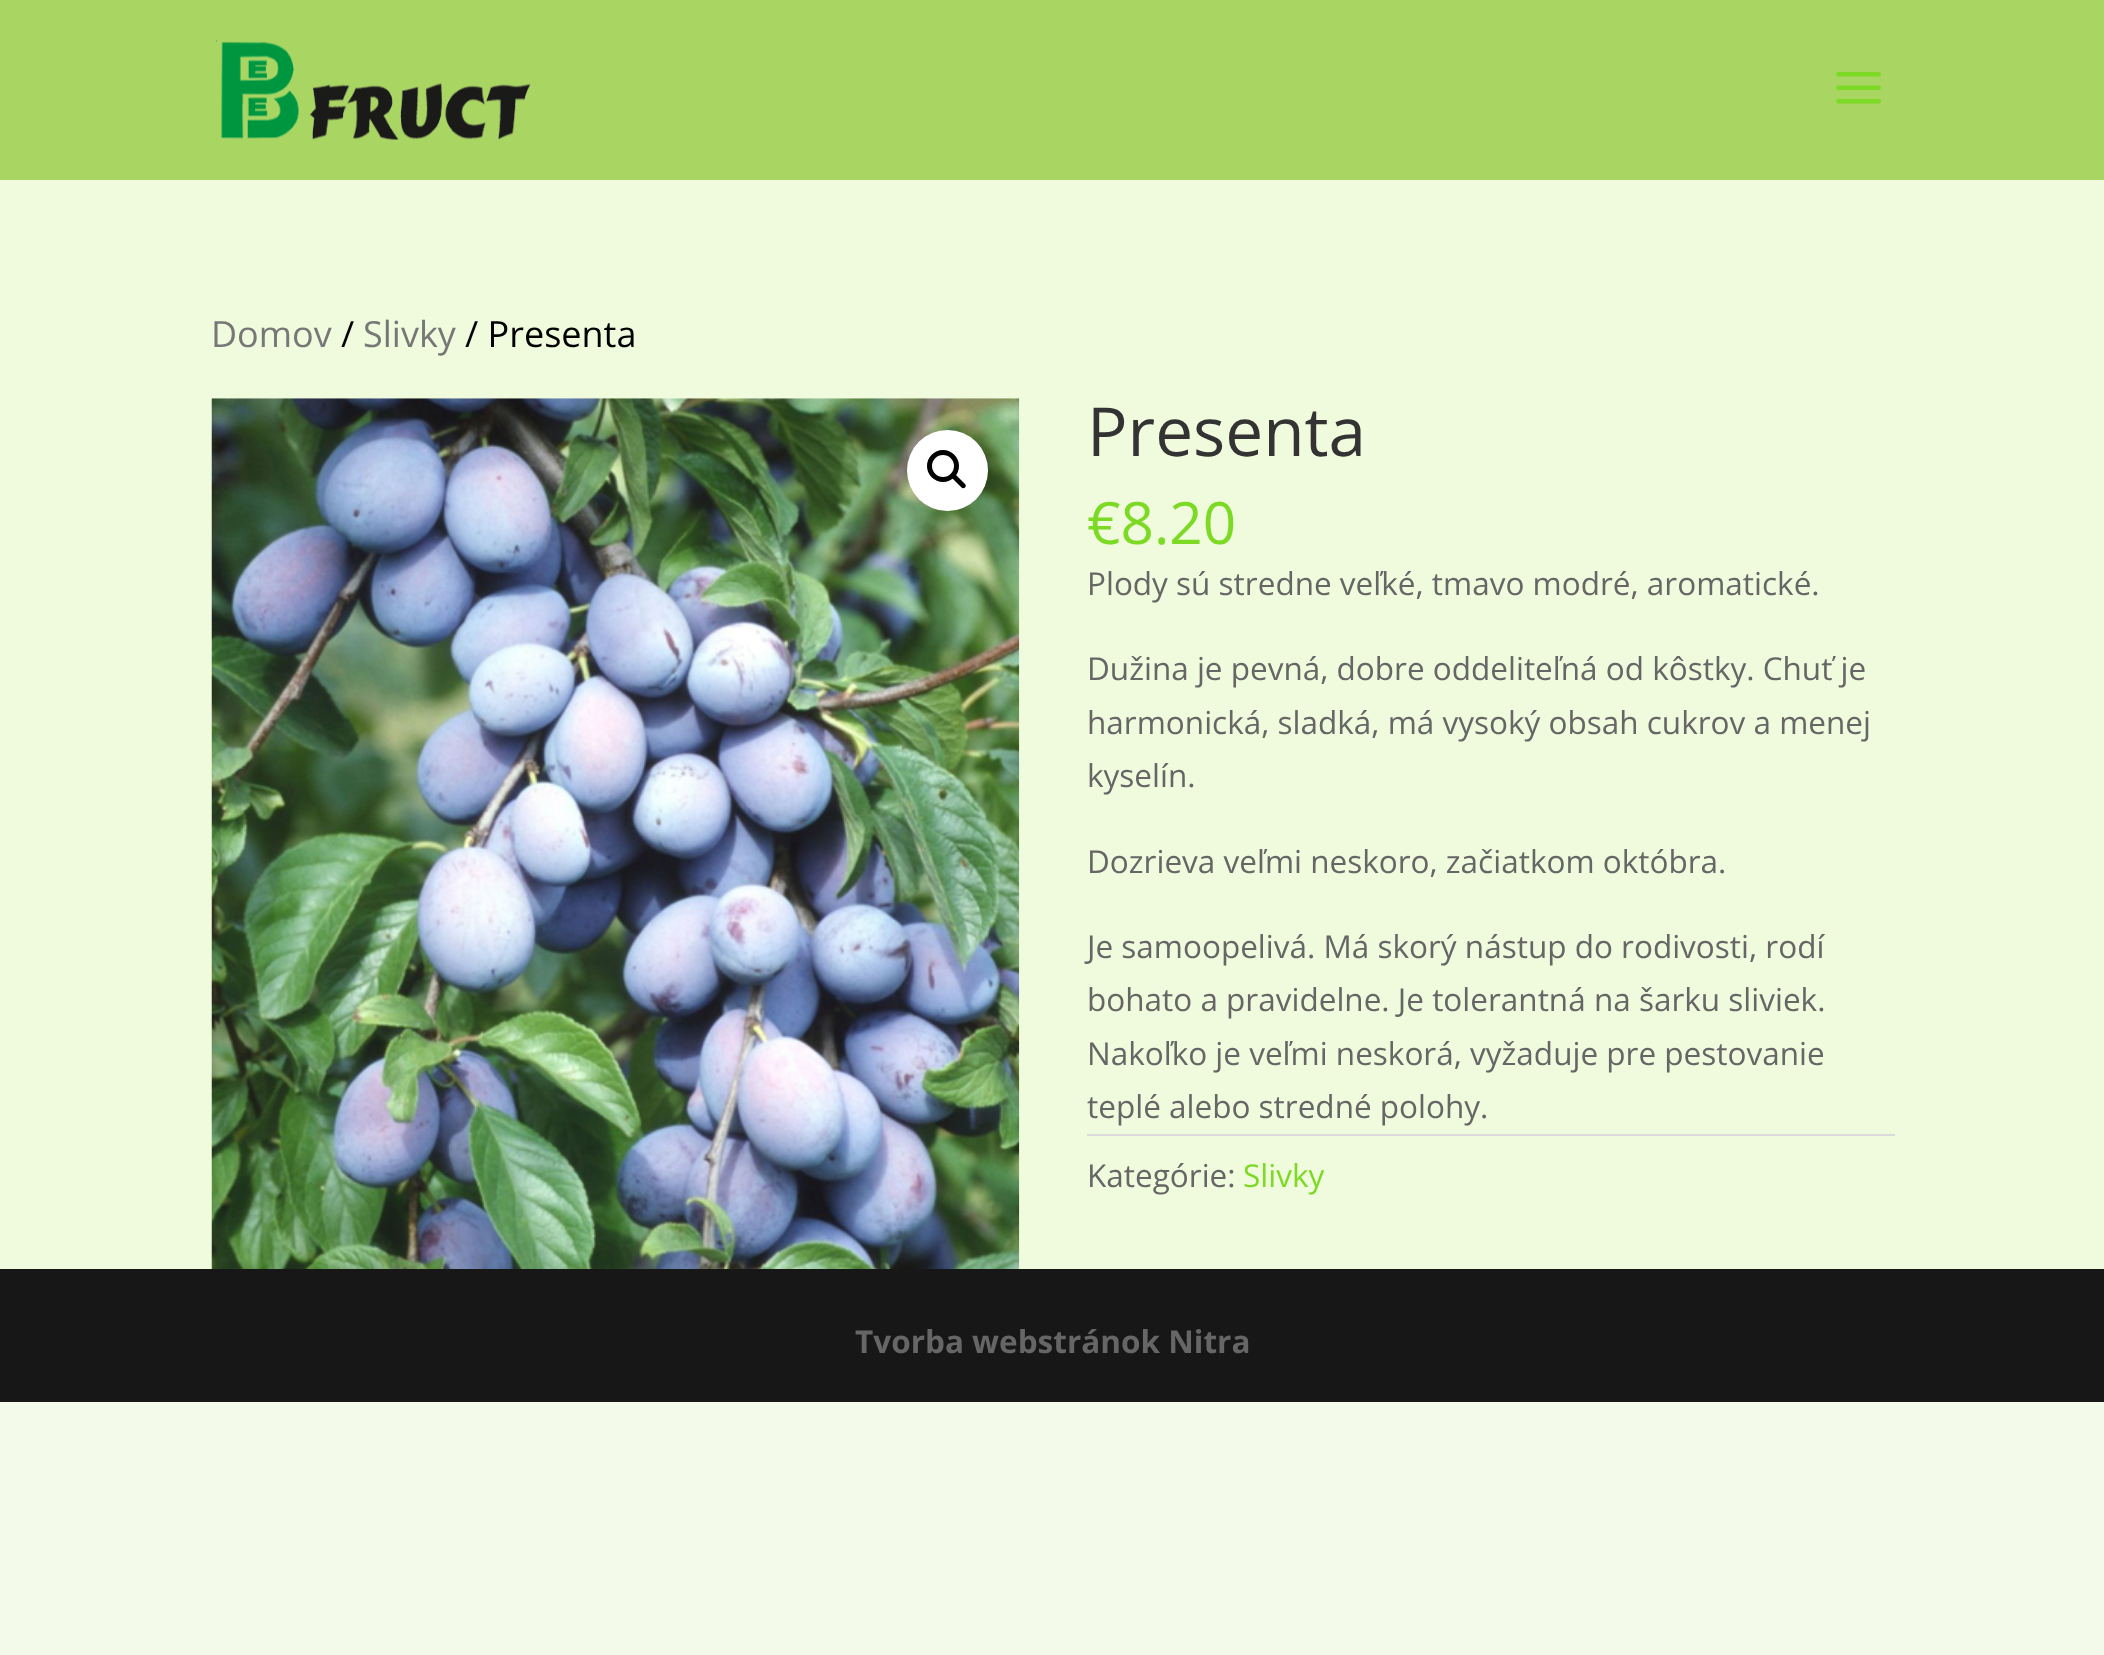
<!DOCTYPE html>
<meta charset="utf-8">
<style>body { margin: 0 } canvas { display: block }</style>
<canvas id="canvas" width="2104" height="1655"></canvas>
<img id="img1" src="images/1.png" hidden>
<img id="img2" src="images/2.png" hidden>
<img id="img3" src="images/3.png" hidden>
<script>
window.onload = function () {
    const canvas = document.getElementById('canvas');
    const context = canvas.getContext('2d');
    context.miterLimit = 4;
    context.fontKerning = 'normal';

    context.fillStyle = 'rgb(244, 250, 234)';
    context.fillRect(0, 0, 2104, 1655);
    context.fillStyle = 'rgb(169, 213, 99)';
    context.fillRect(0, 0, 2104, 180);
    context.drawImage(document.getElementById('img1'), 216, 40, 315, 100);
    context.drawImage(document.getElementById('img2'), 1836, 72, 45, 32);
    context.fillStyle = 'rgb(240, 250, 220)';
    context.fillRect(0, 180, 2104, 1089);
    context.drawImage(document.getElementById('img3'), 211, 398, 809, 871);
    context.fillStyle = 'rgb(255, 255, 255)';
    context.beginPath();
    context.arc(947.5, 470.5, 40.5, 0, 2 * Math.PI);
    context.fill();
    context.beginPath();
    context.arc(943, 466, 13.5, 0, 2 * Math.PI);
    context.strokeStyle = 'rgb(0, 0, 0)';
    context.lineWidth = 5;
    context.stroke();
    context.fillStyle = 'rgb(0, 0, 0)';
    context.beginPath();
    context.moveTo(952, 474.5);
    context.bezierCurveTo(953, 474, 954.5, 474, 955.5, 474.5);
    context.lineTo(965, 484);
    context.bezierCurveTo(966, 485, 966, 486.5, 965, 487.5);
    context.bezierCurveTo(964, 488.5, 962.5, 488.5, 961.5, 487.5);
    context.lineTo(952, 478);
    context.bezierCurveTo(951.5, 477, 951.5, 475.5, 952, 474.5);
    context.closePath();
    context.fill();
    context.fillStyle = 'rgb(218, 218, 218)';
    context.fillRect(1087, 1134, 808, 2);
    context.fillStyle = 'rgb(23, 23, 23)';
    context.fillRect(0, 1269, 2104, 133);
    context.font = '36px Open Sans';
    context.fillStyle = 'rgb(119, 119, 119)';
    context.fillText('Domov', 211, 347);
    context.fillStyle = 'rgb(0, 0, 0)';
    context.fillText('/', 341, 347);
    context.fillStyle = 'rgb(119, 119, 119)';
    context.fillText('Slivky', 363, 347);
    context.fillStyle = 'rgb(0, 0, 0)';
    context.fillText('/ Presenta', 465, 347);
    context.font = '67.5px Open Sans';
    context.fillStyle = 'rgb(51, 51, 51)';
    context.fillText('Presenta', 1087, 456);
    context.font = '58.5px Open Sans';
    context.fillStyle = 'rgb(124, 218, 36)';
    context.fillText('€8.20', 1087, 544);
    context.font = '31.5px Open Sans';
    context.fillStyle = 'rgb(102, 102, 102)';
    context.fillText('Plody sú stredne veľké, tmavo modré, aromatické.', 1087, 595);
    context.fillText('Dužina je pevná, dobre oddeliteľná od kôstky. Chuť je', 1087, 680);
    context.fillText('harmonická, sladká, má vysoký obsah cukrov a menej', 1087, 734);
    context.fillText('kyselín.', 1087, 787);
    context.fillText('Dozrieva veľmi neskoro, začiatkom októbra.', 1087, 873);
    context.fillText('Je samoopelivá. Má skorý nástup do rodivosti, rodí', 1087, 958);
    context.fillText('bohato a pravidelne. Je tolerantná na šarku sliviek.', 1087, 1011);
    context.fillText('Nakoľko je veľmi neskorá, vyžaduje pre pestovanie', 1087, 1065);
    context.fillText('teplé alebo stredné polohy.', 1087, 1118);
    context.fillText('Kategórie:', 1087, 1187);
    context.fillStyle = 'rgb(124, 218, 36)';
    context.fillText('Slivky', 1243, 1187);
    context.font = 'bold 31.5px Open Sans';
    context.fillStyle = 'rgb(102, 102, 102)';
    context.fillText('Tvorba webstránok Nitra', 855, 1353);
};
</script>
